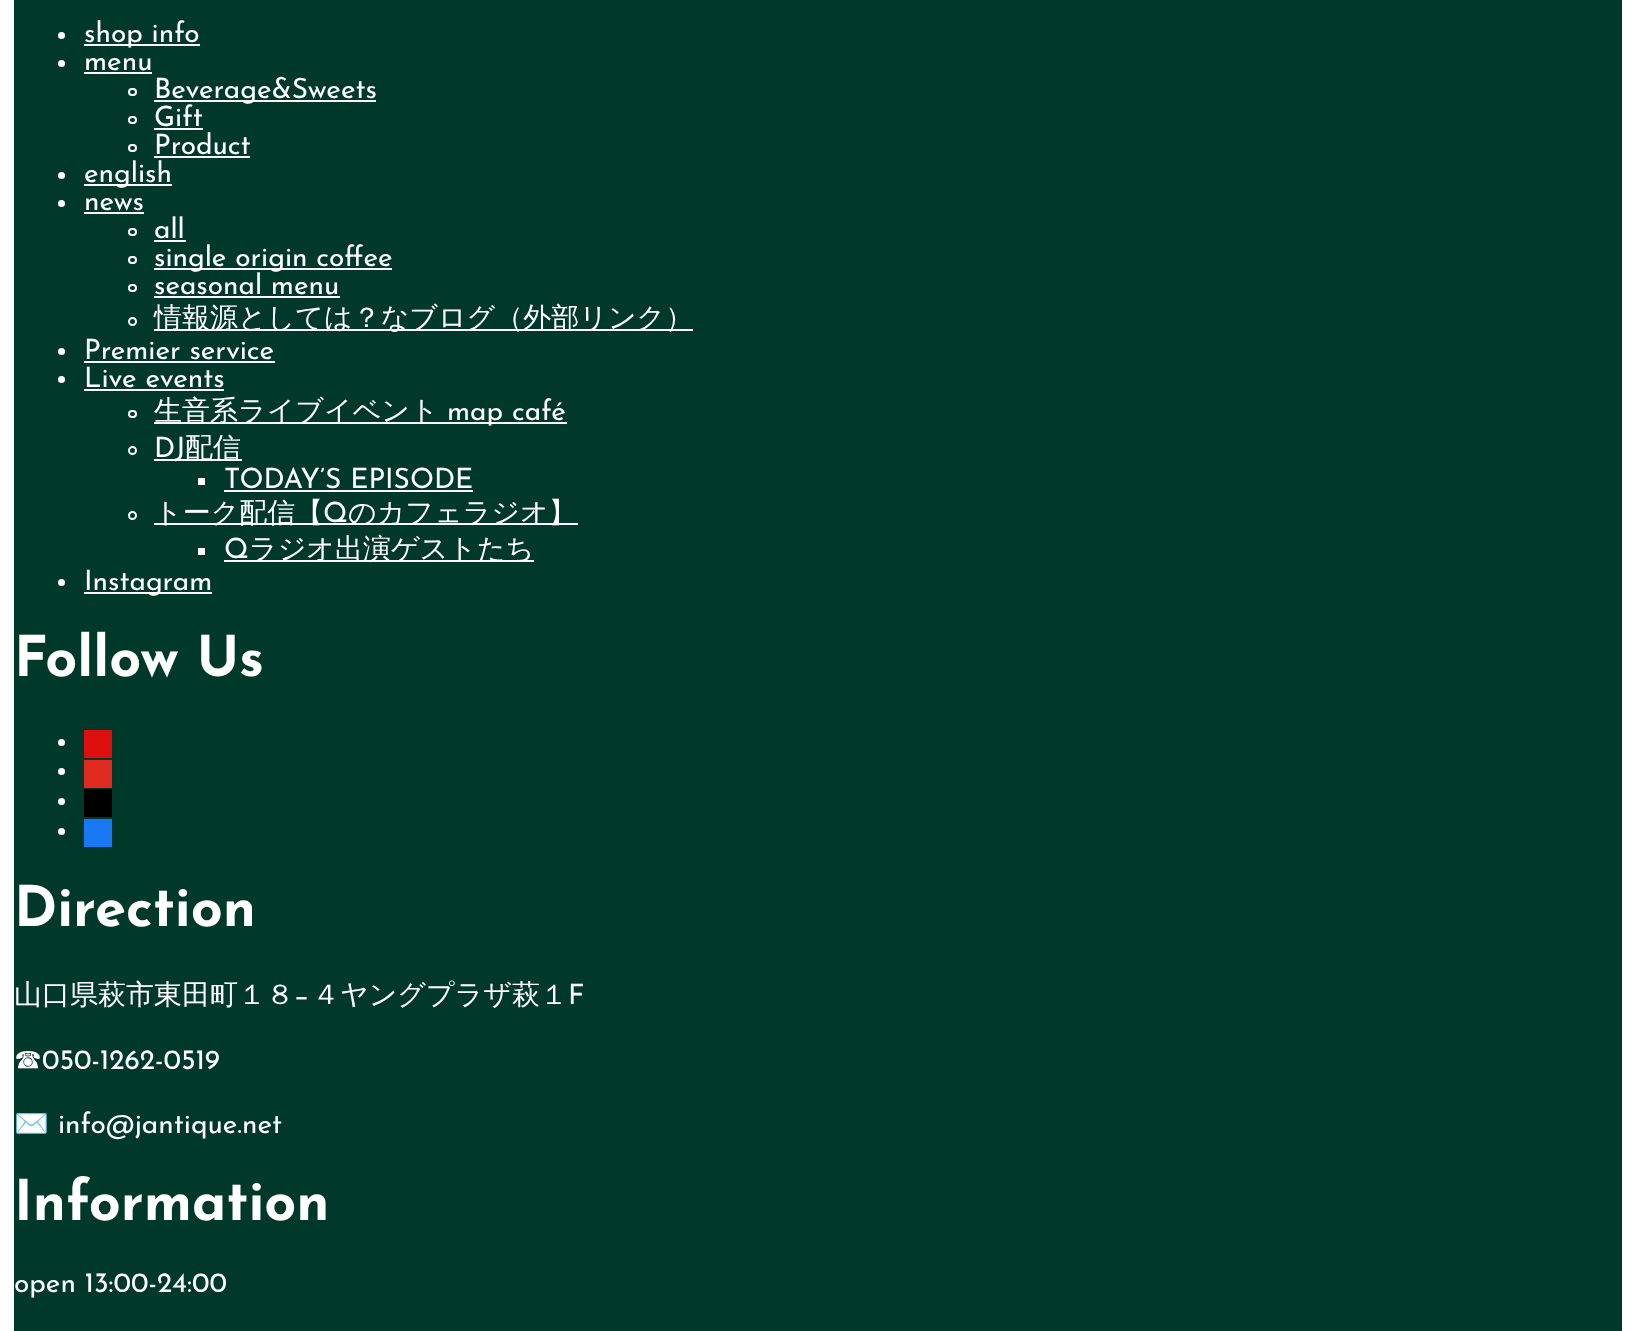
<!DOCTYPE html>
<meta charset="utf-8">
<style>body { margin: 0 } canvas { display: block }</style>
<canvas id="canvas" width="1636" height="1331"></canvas>
<script>
window.onload = function () {
    const canvas = document.getElementById('canvas');
    const context = canvas.getContext('2d');
    context.miterLimit = 4;
    context.fontKerning = 'normal';

    context.fillStyle = 'rgb(255, 255, 255)';
    context.fillRect(0, 0, 1636, 1331);
    context.fillStyle = 'rgb(0, 56, 41)';
    context.fillRect(14, 0, 1608, 1331);
    context.fillStyle = 'rgb(255, 255, 255)';
    context.beginPath();
    context.arc(61.5, 35.5, 3.5, 0, 2 * Math.PI);
    context.fill();
    context.fillRect(84, 44, 116, 2);
    context.beginPath();
    context.arc(61.5, 63.5, 3.5, 0, 2 * Math.PI);
    context.fill();
    context.fillRect(84, 72, 68, 2);
    context.beginPath();
    context.roundRect(129, 89, 7, 6, 3);
    context.strokeStyle = 'rgb(255, 255, 255)';
    context.lineWidth = 2;
    context.stroke();
    context.fillRect(154, 100, 222, 2);
    context.beginPath();
    context.roundRect(129, 117, 7, 6, 3);
    context.stroke();
    context.fillRect(154, 128, 49, 2);
    context.beginPath();
    context.roundRect(129, 145, 7, 6, 3);
    context.stroke();
    context.fillRect(154, 156, 96, 2);
    context.beginPath();
    context.arc(61.5, 175.5, 3.5, 0, 2 * Math.PI);
    context.fill();
    context.fillRect(84, 184, 88, 2);
    context.beginPath();
    context.arc(61.5, 203.5, 3.5, 0, 2 * Math.PI);
    context.fill();
    context.fillRect(84, 212, 60, 2);
    context.beginPath();
    context.roundRect(129, 229, 7, 6, 3);
    context.stroke();
    context.fillRect(154, 240, 32, 2);
    context.beginPath();
    context.roundRect(129, 257, 7, 6, 3);
    context.stroke();
    context.fillRect(154, 268, 238, 2);
    context.beginPath();
    context.roundRect(129, 285, 7, 6, 3);
    context.stroke();
    context.fillRect(154, 296, 186, 2);
    context.beginPath();
    context.arc(132.5, 321.5, 3.5, 0, 2 * Math.PI);
    context.stroke();
    context.fillRect(154, 329, 539, 2);
    context.beginPath();
    context.arc(61.5, 351.5, 3.5, 0, 2 * Math.PI);
    context.fill();
    context.fillRect(84, 361, 191, 2);
    context.beginPath();
    context.arc(61.5, 379.5, 3.5, 0, 2 * Math.PI);
    context.fill();
    context.fillRect(84, 389, 140, 2);
    context.beginPath();
    context.roundRect(129, 411, 7, 6, 3);
    context.stroke();
    context.fillRect(154, 422, 413, 2);
    context.beginPath();
    context.arc(132.5, 450.5, 3.5, 0, 2 * Math.PI);
    context.stroke();
    context.fillRect(154, 459, 88, 2);
    context.fillRect(198, 478, 7, 7);
    context.fillRect(224, 490, 249, 2);
    context.beginPath();
    context.arc(132.5, 515.5, 3.5, 0, 2 * Math.PI);
    context.stroke();
    context.fillRect(154, 523, 424, 2);
    context.fillRect(198, 548, 7, 7);
    context.fillRect(224, 560, 310, 2);
    context.beginPath();
    context.arc(61.5, 582.5, 3.5, 0, 2 * Math.PI);
    context.fill();
    context.fillRect(84, 592, 128, 2);
    context.beginPath();
    context.arc(61.5, 742.5, 3.5, 0, 2 * Math.PI);
    context.fill();
    context.fillStyle = 'rgb(221, 15, 15)';
    context.fillRect(84, 730, 28, 28);
    context.fillStyle = 'rgb(255, 255, 255)';
    context.beginPath();
    context.arc(61.5, 771.5, 3.5, 0, 2 * Math.PI);
    context.fill();
    context.fillStyle = 'rgb(224, 42, 32)';
    context.fillRect(84, 760, 28, 28);
    context.fillStyle = 'rgb(255, 255, 255)';
    context.beginPath();
    context.arc(61.5, 801.5, 3.5, 0, 2 * Math.PI);
    context.fill();
    context.fillStyle = 'rgb(0, 0, 0)';
    context.fillRect(84, 789, 28, 28);
    context.fillStyle = 'rgb(255, 255, 255)';
    context.beginPath();
    context.arc(61.5, 831.5, 3.5, 0, 2 * Math.PI);
    context.fill();
    context.fillStyle = 'rgb(24, 119, 242)';
    context.fillRect(84, 819, 28, 28);
    context.font = '28px Josefin Sans';
    context.fillStyle = 'rgb(255, 255, 255)';
    context.fillText('shop info', 84, 42);
    context.fillText('menu', 84, 70);
    context.fillText('Beverage&Sweets', 154, 98);
    context.fillText('Gift', 154, 126);
    context.fillText('Product', 154, 154);
    context.fillText('english', 84, 182);
    context.fillText('news', 84, 210);
    context.fillText('all', 154, 238);
    context.fillText('single origin coffee', 154, 266);
    context.fillText('seasonal menu', 154, 294);
    context.font = '500 28px WenQuanYi Zen Hei';
    context.fillText('情報源としては？なブログ（外部リンク）', 154, 327);
    context.font = '28px Josefin Sans';
    context.fillText('Premier service', 84, 359);
    context.fillText('Live events', 84, 387);
    context.font = '500 28px WenQuanYi Zen Hei';
    context.fillText('生音系ライブイベント', 154, 420);
    context.font = '28px Josefin Sans';
    context.fillText('map café', 447, 420);
    context.fillText('DJ', 154, 457);
    context.font = '500 28px WenQuanYi Zen Hei';
    context.fillText('配信', 185, 457);
    context.font = '28px Josefin Sans';
    context.fillText('TODAY’S EPISODE', 224, 488);
    context.font = '500 28px WenQuanYi Zen Hei';
    context.fillText('トーク配信【', 154, 522);
    context.font = '28px Josefin Sans';
    context.fillText('Q', 323, 522);
    context.font = '500 28px WenQuanYi Zen Hei';
    context.fillText('のカフェラジオ】', 348, 522);
    context.font = '28px Josefin Sans';
    context.fillText('Q', 224, 558);
    context.font = '500 28px WenQuanYi Zen Hei';
    context.fillText('ラジオ出演ゲストたち', 249, 558);
    context.font = '28px Josefin Sans';
    context.fillText('Instagram', 84, 590);
    context.font = 'bold 56px Josefin Sans';
    context.fillText('Follow Us', 14, 676);
    context.fillText('Direction', 14, 926);
    context.font = '500 28px WenQuanYi Zen Hei';
    context.fillText('山口県萩市東田町１８', 14, 1004);
    context.font = '28px Josefin Sans';
    context.fillText('−', 294, 1004);
    context.font = '500 28px WenQuanYi Zen Hei';
    context.fillText('４ヤングプラザ萩１', 312, 1004);
    context.font = '28px Josefin Sans';
    context.fillText('F', 568, 1004);
    context.font = '500 28px WenQuanYi Zen Hei';
    context.fillText('☎︎', 14, 1069);
    context.font = '28px Josefin Sans';
    context.fillText('050-1262-0519', 42, 1069);
    context.font = '28px Noto Color Emoji';
    context.fillText('✉️', 14, 1133);
    context.font = '28px Josefin Sans';
    context.fillText('info@jantique.net', 58, 1133);
    context.font = 'bold 56px Josefin Sans';
    context.fillText('Information', 14, 1220);
    context.font = '28px Josefin Sans';
    context.fillText('open 13:00-24:00', 14, 1292);
};
</script>
